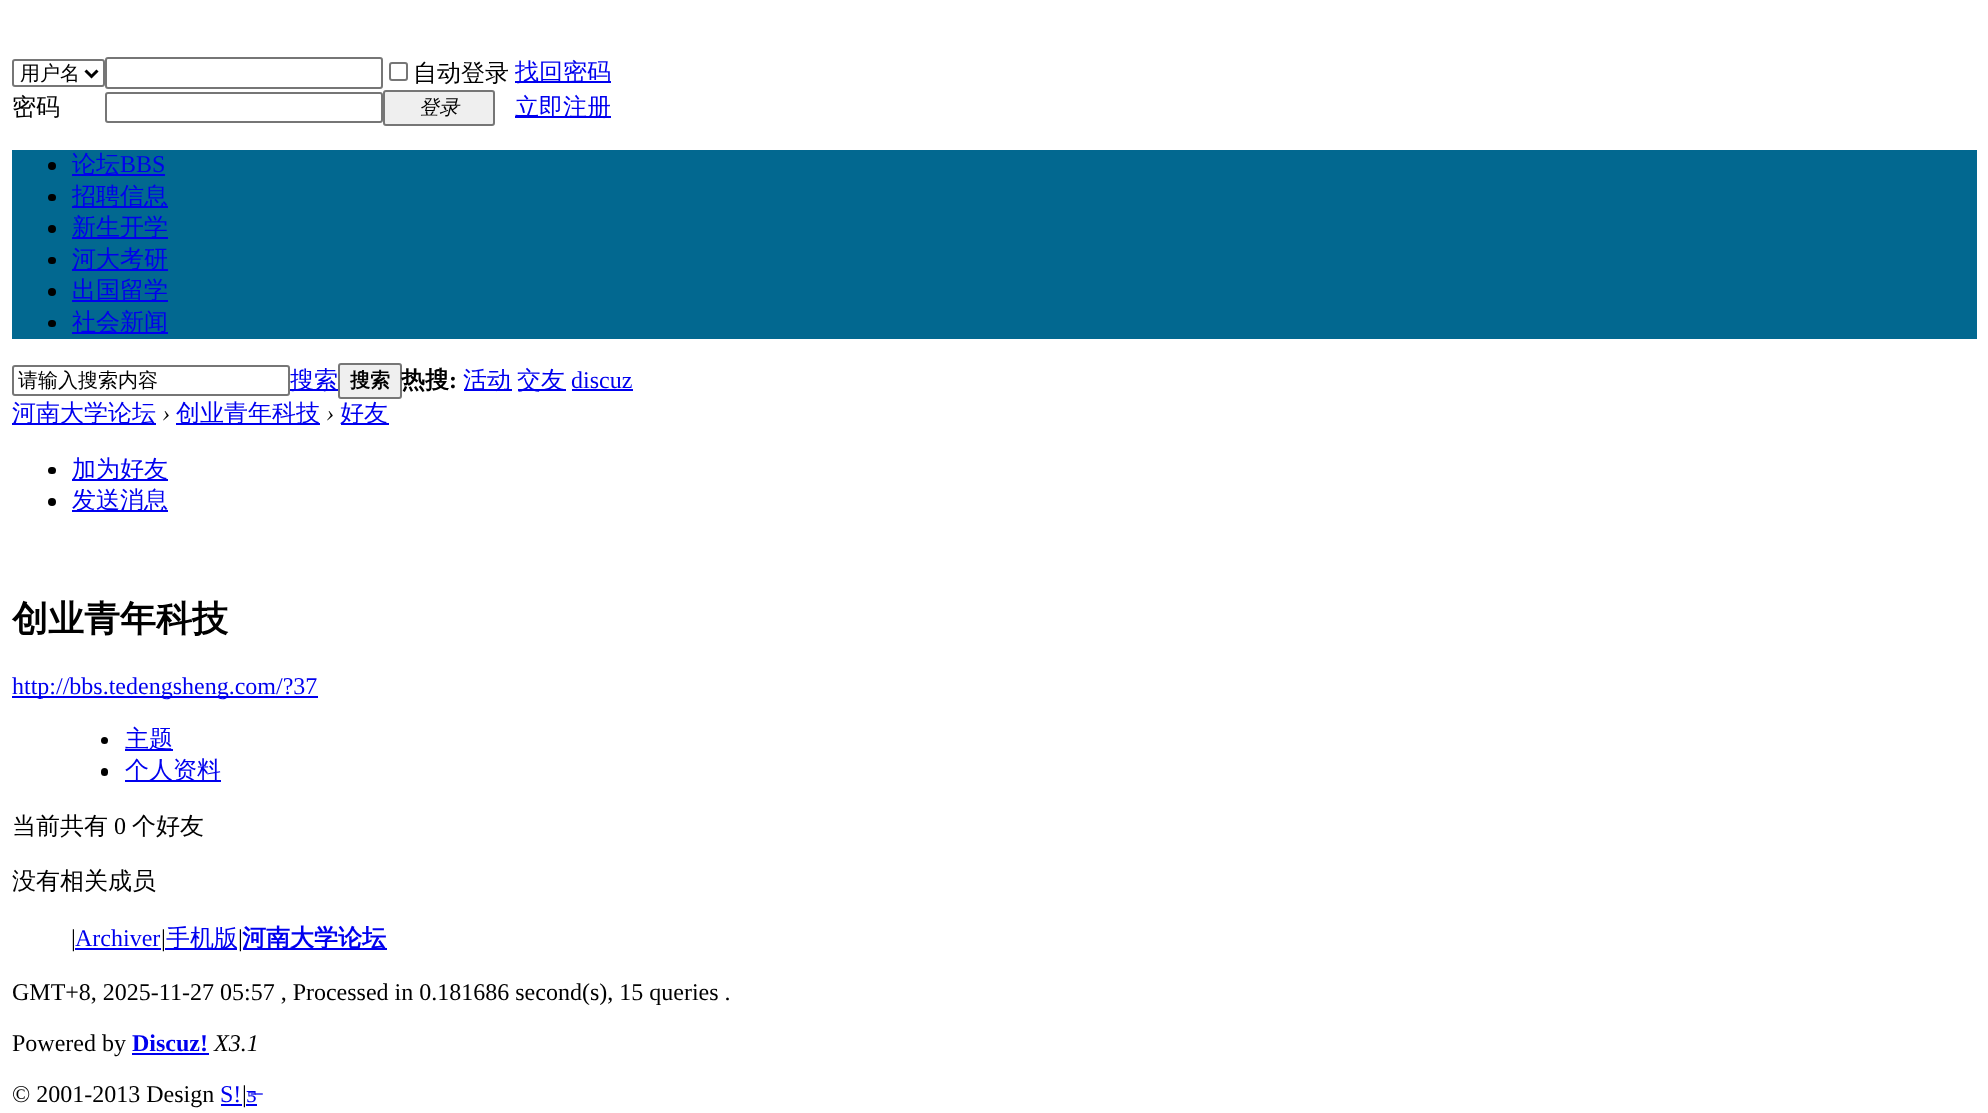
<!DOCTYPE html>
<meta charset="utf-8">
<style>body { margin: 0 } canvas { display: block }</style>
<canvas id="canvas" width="1988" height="1113"></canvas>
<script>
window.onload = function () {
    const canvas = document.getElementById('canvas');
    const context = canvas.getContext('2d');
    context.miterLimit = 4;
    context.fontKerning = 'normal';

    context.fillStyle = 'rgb(255, 255, 255)';
    context.fillRect(0, 0, 1988, 1113);
    context.beginPath();
    context.roundRect(13, 60, 91, 26, 2);
    context.strokeStyle = 'rgb(118, 118, 118)';
    context.lineWidth = 2;
    context.stroke();
    context.beginPath();
    context.moveTo(85.5, 70.5);
    context.lineTo(91.5, 76.5);
    context.lineTo(97.5, 70.5);
    context.strokeStyle = 'rgb(0, 0, 0)';
    context.lineWidth = 3;
    context.stroke();
    context.beginPath();
    context.roundRect(106, 58, 276, 30, 2);
    context.strokeStyle = 'rgb(118, 118, 118)';
    context.lineWidth = 2;
    context.stroke();
    context.beginPath();
    context.roundRect(390, 63, 17, 17, 2);
    context.stroke();
    context.fillStyle = 'rgb(0, 0, 238)';
    context.fillRect(515, 81, 96, 2);
    context.beginPath();
    context.roundRect(106, 93, 276, 29, 2);
    context.stroke();
    context.fillStyle = 'rgb(239, 239, 239)';
    context.beginPath();
    context.roundRect(384, 91, 110, 34, 2);
    context.fill();
    context.stroke();
    context.fillStyle = 'rgb(0, 0, 238)';
    context.fillRect(515, 116, 96, 2);
    context.fillStyle = 'rgb(2, 104, 144)';
    context.fillRect(12, 150, 1965, 189);
    context.fillStyle = 'rgb(0, 0, 0)';
    context.beginPath();
    context.arc(52, 166, 4, 0, 2 * Math.PI);
    context.fill();
    context.fillStyle = 'rgb(0, 0, 238)';
    context.fillRect(72, 174, 93, 2);
    context.fillStyle = 'rgb(0, 0, 0)';
    context.beginPath();
    context.roundRect(48, 194, 8, 7, 3.5);
    context.fill();
    context.fillStyle = 'rgb(0, 0, 238)';
    context.fillRect(72, 206, 96, 2);
    context.fillStyle = 'rgb(0, 0, 0)';
    context.beginPath();
    context.arc(52, 229, 4, 0, 2 * Math.PI);
    context.fill();
    context.fillStyle = 'rgb(0, 0, 238)';
    context.fillRect(72, 237, 96, 2);
    context.fillStyle = 'rgb(0, 0, 0)';
    context.beginPath();
    context.roundRect(48, 257, 8, 7, 3.5);
    context.fill();
    context.fillStyle = 'rgb(0, 0, 238)';
    context.fillRect(72, 269, 96, 2);
    context.fillStyle = 'rgb(0, 0, 0)';
    context.beginPath();
    context.arc(52, 292, 4, 0, 2 * Math.PI);
    context.fill();
    context.fillStyle = 'rgb(0, 0, 238)';
    context.fillRect(72, 300, 96, 2);
    context.fillStyle = 'rgb(0, 0, 0)';
    context.beginPath();
    context.roundRect(48, 320, 8, 7, 3.5);
    context.fill();
    context.fillStyle = 'rgb(0, 0, 238)';
    context.fillRect(72, 332, 96, 2);
    context.beginPath();
    context.roundRect(13, 366, 276, 29, 2);
    context.stroke();
    context.fillRect(290, 389, 48, 2);
    context.fillStyle = 'rgb(239, 239, 239)';
    context.beginPath();
    context.roundRect(339, 364, 62, 34, 2);
    context.fill();
    context.stroke();
    context.fillStyle = 'rgb(0, 0, 238)';
    context.fillRect(464, 389, 48, 2);
    context.fillRect(518, 389, 48, 2);
    context.fillRect(572, 389, 61, 2);
    context.fillRect(12, 423, 144, 2);
    context.fillRect(176, 423, 144, 2);
    context.fillRect(341, 423, 48, 2);
    context.fillStyle = 'rgb(0, 0, 0)';
    context.beginPath();
    context.roundRect(48, 467, 8, 7, 3.5);
    context.fill();
    context.fillStyle = 'rgb(0, 0, 238)';
    context.fillRect(72, 479, 96, 2);
    context.fillStyle = 'rgb(0, 0, 0)';
    context.beginPath();
    context.arc(52, 502, 4, 0, 2 * Math.PI);
    context.fill();
    context.fillStyle = 'rgb(0, 0, 238)';
    context.fillRect(72, 510, 96, 2);
    context.fillRect(12, 696, 306, 2);
    context.fillStyle = 'rgb(0, 0, 0)';
    context.beginPath();
    context.arc(104.5, 740.5, 3.5, 0, 2 * Math.PI);
    context.fill();
    context.fillStyle = 'rgb(0, 0, 238)';
    context.fillRect(125, 749, 48, 2);
    context.fillStyle = 'rgb(0, 0, 0)';
    context.beginPath();
    context.roundRect(101, 768, 7, 8, 3.5);
    context.fill();
    context.fillStyle = 'rgb(0, 0, 238)';
    context.fillRect(125, 780, 96, 2);
    context.fillRect(75, 948, 86, 2);
    context.fillRect(165, 948, 72, 2);
    context.fillRect(243, 948, 144, 2);
    context.fillRect(132, 1053, 77, 2);
    context.fillRect(221, 1104, 21, 2);
    context.fillRect(246, 1104, 11, 2);
    context.font = '500 20px WenQuanYi Zen Hei';
    context.fillStyle = 'rgb(0, 0, 0)';
    context.fillText('用户名', 20, 80);
    context.font = '500 24px WenQuanYi Zen Hei';
    context.fillText('自动登录', 413, 81);
    context.fillStyle = 'rgb(0, 0, 238)';
    context.fillText('找回密码', 515, 80);
    context.fillStyle = 'rgb(0, 0, 0)';
    context.fillText('密码', 12, 115);
    context.font = 'italic 500 20px WenQuanYi Zen Hei';
    context.fillText('登录', 419, 114);
    context.font = '500 24px WenQuanYi Zen Hei';
    context.fillStyle = 'rgb(0, 0, 238)';
    context.fillText('立即注册', 515, 115);
    context.fillText('论坛', 72, 172);
    context.font = '24px Liberation Serif';
    context.fillText('BBS', 120, 172);
    context.font = '500 24px WenQuanYi Zen Hei';
    context.fillText('招聘信息', 72, 204);
    context.fillText('新生开学', 72, 235);
    context.fillText('河大考研', 72, 267);
    context.fillText('出国留学', 72, 298);
    context.fillText('社会新闻', 72, 330);
    context.font = '500 20px WenQuanYi Zen Hei';
    context.fillStyle = 'rgb(0, 0, 0)';
    context.fillText('请输入搜索内容', 18, 387);
    context.font = '500 24px WenQuanYi Zen Hei';
    context.fillStyle = 'rgb(0, 0, 238)';
    context.fillText('搜索', 290, 388);
    context.font = 'bold 20px WenQuanYi Zen Hei';
    context.fillStyle = 'rgb(0, 0, 0)';
    context.fillText('搜索', 350, 387);
    context.font = 'bold 24px WenQuanYi Zen Hei';
    context.fillText('热搜', 401, 388);
    context.font = 'bold 24px Liberation Serif';
    context.fillText(':', 449, 388);
    context.font = '500 24px WenQuanYi Zen Hei';
    context.fillStyle = 'rgb(0, 0, 238)';
    context.fillText('活动', 463, 388);
    context.fillText('交友', 517, 388);
    context.font = '24px Liberation Serif';
    context.fillText('discuz', 571, 388);
    context.font = '500 24px WenQuanYi Zen Hei';
    context.fillText('河南大学论坛', 12, 421);
    context.font = 'italic 24px Liberation Serif';
    context.fillStyle = 'rgb(0, 0, 0)';
    context.fillText('›', 162, 421);
    context.font = '500 24px WenQuanYi Zen Hei';
    context.fillStyle = 'rgb(0, 0, 238)';
    context.fillText('创业青年科技', 176, 421);
    context.font = 'italic 24px Liberation Serif';
    context.fillStyle = 'rgb(0, 0, 0)';
    context.fillText('›', 326, 421);
    context.font = '500 24px WenQuanYi Zen Hei';
    context.fillStyle = 'rgb(0, 0, 238)';
    context.fillText('好友', 340, 421);
    context.fillText('加为好友', 72, 477);
    context.fillText('发送消息', 72, 508);
    context.font = 'bold 36px WenQuanYi Zen Hei';
    context.fillStyle = 'rgb(0, 0, 0)';
    context.fillText('创业青年科技', 12, 631);
    context.font = '24px Liberation Serif';
    context.fillStyle = 'rgb(0, 0, 238)';
    context.fillText('http://bbs.tedengsheng.com/?37', 12, 694);
    context.font = '500 24px WenQuanYi Zen Hei';
    context.fillText('主题', 125, 747);
    context.fillText('个人资料', 125, 778);
    context.fillStyle = 'rgb(0, 0, 0)';
    context.fillText('当前共有', 12, 834);
    context.font = '24px Liberation Serif';
    context.fillText('0', 114, 834);
    context.font = '500 24px WenQuanYi Zen Hei';
    context.fillText('个好友', 132, 834);
    context.fillText('没有相关成员', 12, 889);
    context.font = '24px Liberation Serif';
    context.fillText('|', 71, 946);
    context.fillStyle = 'rgb(0, 0, 238)';
    context.fillText('Archiver', 75, 946);
    context.fillStyle = 'rgb(0, 0, 0)';
    context.fillText('|', 161, 946);
    context.font = '500 24px WenQuanYi Zen Hei';
    context.fillStyle = 'rgb(0, 0, 238)';
    context.fillText('手机版', 166, 946);
    context.font = '24px Liberation Serif';
    context.fillStyle = 'rgb(0, 0, 0)';
    context.fillText('|', 238, 946);
    context.font = 'bold 24px WenQuanYi Zen Hei';
    context.fillStyle = 'rgb(0, 0, 238)';
    context.fillText('河南大学论坛', 242, 946);
    context.font = '24px Liberation Serif';
    context.fillStyle = 'rgb(0, 0, 0)';
    context.fillText('GMT+8, 2025-11-27 05:57 , Processed in 0.181686 second(s), 15 queries .', 12, 1000);
    context.fillText('Powered by', 12, 1051);
    context.font = 'bold 24px Liberation Serif';
    context.fillStyle = 'rgb(0, 0, 238)';
    context.fillText('Discuz!', 132, 1051);
    context.font = 'italic 24px Liberation Serif';
    context.fillStyle = 'rgb(0, 0, 0)';
    context.fillText('X3.1', 214, 1051);
    context.font = '24px Liberation Serif';
    context.fillText('© 2001-2013 Design', 12, 1102);
    context.fillStyle = 'rgb(0, 0, 238)';
    context.fillText('S!', 220, 1102);
    context.fillStyle = 'rgb(0, 0, 0)';
    context.fillText('|', 242, 1102);
    context.fillStyle = 'rgb(0, 0, 238)';
    context.fillText('ƽ̶', 246, 1102);
};
</script>
